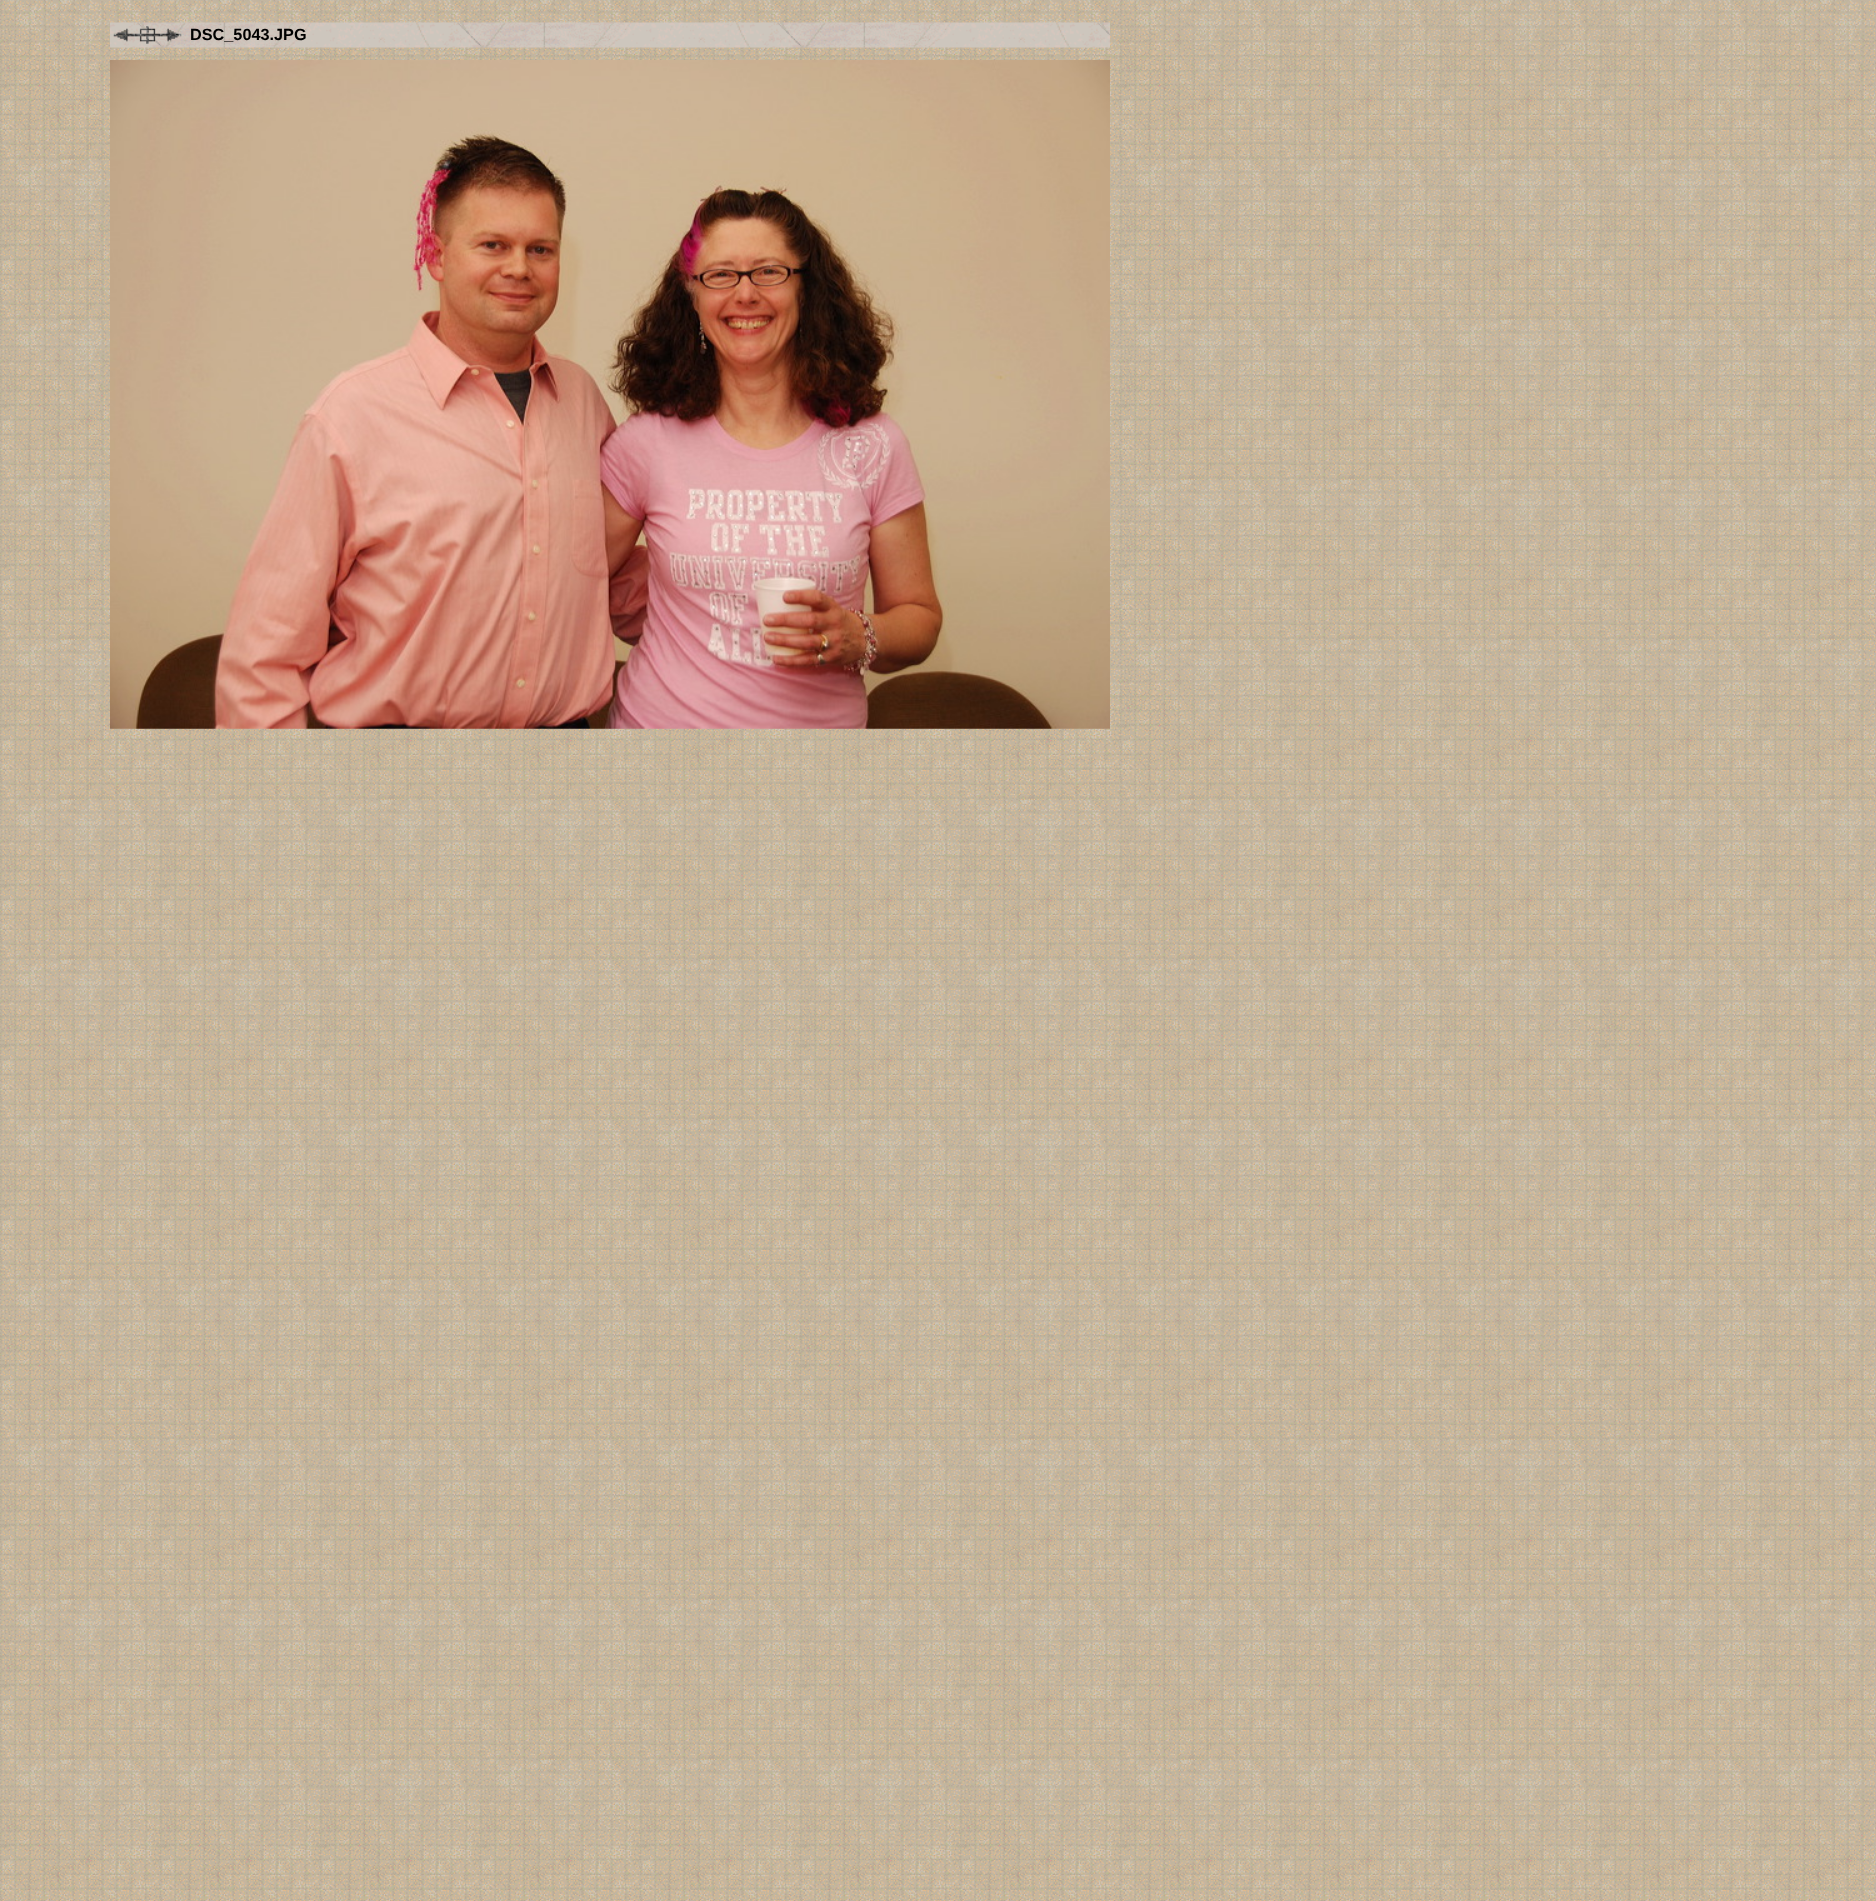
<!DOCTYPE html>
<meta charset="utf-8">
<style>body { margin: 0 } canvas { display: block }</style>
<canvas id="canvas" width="1876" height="1901"></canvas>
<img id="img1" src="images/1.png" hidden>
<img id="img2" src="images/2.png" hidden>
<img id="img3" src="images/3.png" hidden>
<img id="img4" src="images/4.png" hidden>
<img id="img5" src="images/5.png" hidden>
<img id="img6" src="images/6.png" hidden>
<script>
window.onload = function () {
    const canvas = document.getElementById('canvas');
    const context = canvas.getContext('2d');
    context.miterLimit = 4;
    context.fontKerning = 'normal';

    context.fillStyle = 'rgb(255, 255, 255)';
    context.fillRect(0, 0, 1876, 1901);
    context.drawImage(document.getElementById('img1'), 0, 0, 1876, 1901);
    context.drawImage(document.getElementById('img2'), 110, 22, 1000, 26);
    context.drawImage(document.getElementById('img3'), 113, 28, 22, 14);
    context.drawImage(document.getElementById('img4'), 135, 26, 25, 18);
    context.drawImage(document.getElementById('img5'), 160, 28, 22, 14);
    context.drawImage(document.getElementById('img6'), 110, 60, 1000, 669);
    context.font = 'bold 16.25px Liberation Sans';
    context.fillStyle = 'rgb(0, 0, 0)';
    context.fillText('DSC_5043.JPG', 190, 40);
};
</script>
